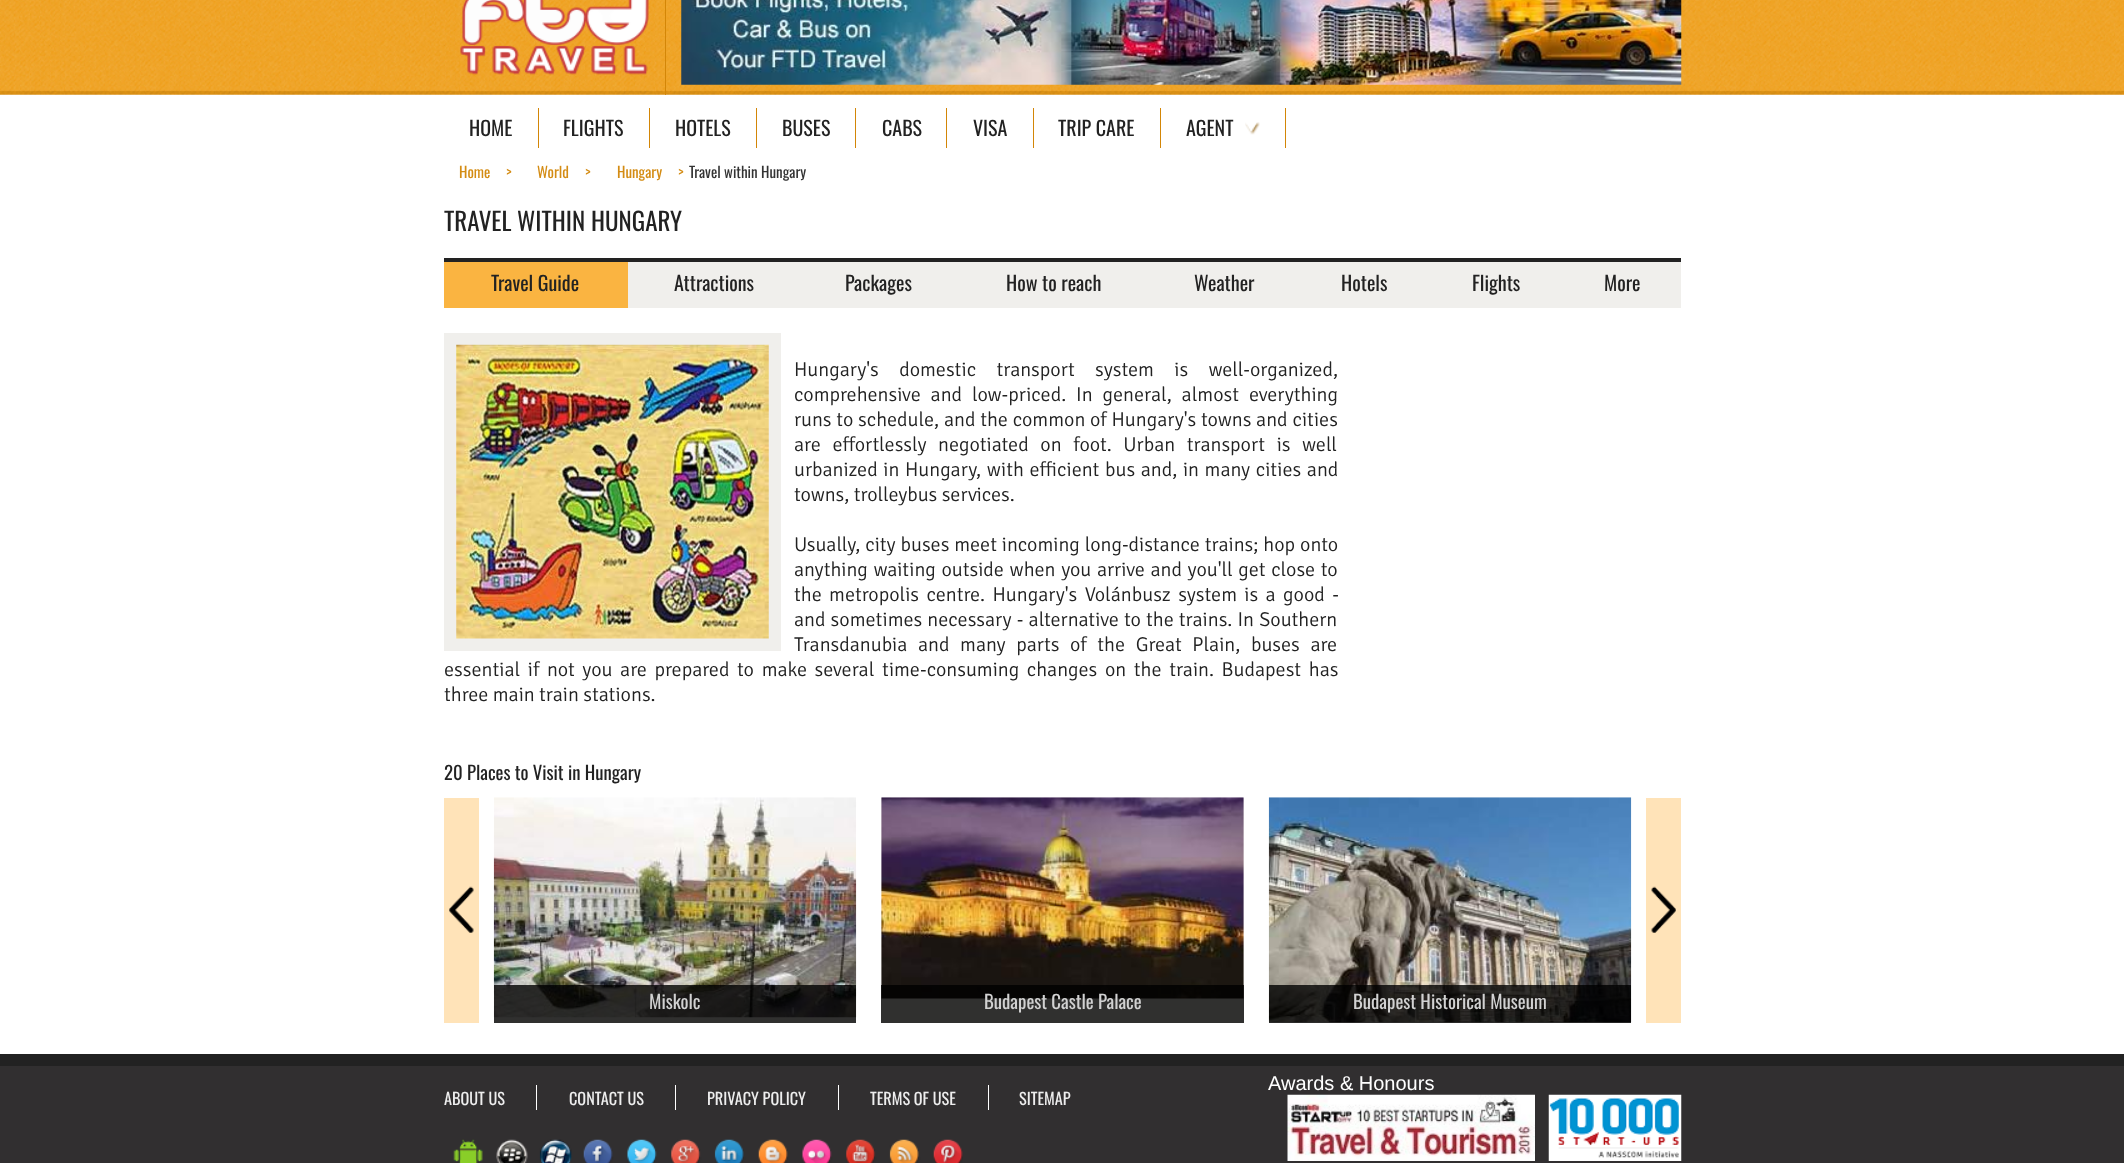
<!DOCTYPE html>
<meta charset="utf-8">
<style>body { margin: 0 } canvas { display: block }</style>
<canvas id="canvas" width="2124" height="1163"></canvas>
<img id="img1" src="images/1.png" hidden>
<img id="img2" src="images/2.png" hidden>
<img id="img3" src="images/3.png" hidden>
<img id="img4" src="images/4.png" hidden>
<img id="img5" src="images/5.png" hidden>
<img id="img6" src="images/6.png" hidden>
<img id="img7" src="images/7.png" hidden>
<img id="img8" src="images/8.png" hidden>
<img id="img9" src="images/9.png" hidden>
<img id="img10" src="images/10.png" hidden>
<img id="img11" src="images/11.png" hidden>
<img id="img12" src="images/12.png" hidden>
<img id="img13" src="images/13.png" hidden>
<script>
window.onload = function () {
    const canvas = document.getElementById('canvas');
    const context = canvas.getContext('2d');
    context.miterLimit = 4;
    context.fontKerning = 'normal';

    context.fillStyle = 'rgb(255, 255, 255)';
    context.fillRect(0, 0, 2124, 1163);
    context.drawImage(document.getElementById('img1'), 0, 0, 2124, 95);
    context.fillStyle = 'rgb(211, 134, 7)';
    context.fillRect(665, 0, 1, 95);
    context.drawImage(document.getElementById('img2'), 460, 0, 189, 75);
    context.drawImage(document.getElementById('img3'), 681, 0, 1001, 85);
    context.fillRect(538, 108, 1, 40);
    context.fillRect(649, 108, 1, 40);
    context.fillRect(756, 108, 1, 40);
    context.fillRect(855, 108, 1, 40);
    context.fillRect(946, 108, 1, 40);
    context.fillRect(1033, 108, 1, 40);
    context.fillRect(1160, 108, 1, 40);
    context.fillRect(1285, 108, 1, 40);
    context.drawImage(document.getElementById('img4'), 1245, 122, 15, 13);
    context.fillStyle = 'rgb(250, 180, 65)';
    context.fillRect(444, 262, 184, 46);
    context.fillStyle = 'rgb(34, 34, 34)';
    context.fillRect(444, 258, 1237, 4);
    context.fillStyle = 'rgb(240, 239, 236)';
    context.fillRect(628, 262, 1053, 46);
    context.fillRect(444, 333, 337, 318);
    context.drawImage(document.getElementById('img5'), 456, 344, 313, 295);
    context.fillStyle = 'rgb(255, 227, 184)';
    context.fillRect(444, 798, 35, 225);
    context.drawImage(document.getElementById('img6'), 449, 886, 25, 47);
    context.fillStyle = 'rgb(240, 239, 236)';
    context.fillRect(494, 1017, 362, 6);
    context.drawImage(document.getElementById('img7'), 493, 797, 364, 221);
    context.fillStyle = 'rgba(0, 0, 0, 0.8)';
    context.fillRect(494, 985, 362, 38);
    context.fillStyle = 'rgb(240, 239, 236)';
    context.fillRect(881, 798, 363, 225);
    context.drawImage(document.getElementById('img8'), 881, 797, 363, 202);
    context.fillStyle = 'rgba(0, 0, 0, 0.8)';
    context.fillRect(881, 985, 363, 38);
    context.fillStyle = 'rgb(240, 239, 236)';
    context.fillRect(1269, 1022, 362, 1);
    context.drawImage(document.getElementById('img9'), 1268, 797, 364, 226);
    context.fillStyle = 'rgba(0, 0, 0, 0.8)';
    context.fillRect(1269, 985, 362, 38);
    context.fillStyle = 'rgb(255, 227, 184)';
    context.fillRect(1646, 798, 35, 225);
    context.drawImage(document.getElementById('img10'), 1651, 886, 25, 47);
    context.fillStyle = 'rgb(49, 47, 48)';
    context.fillRect(0, 1066, 2124, 97);
    context.fillStyle = 'rgb(34, 34, 34)';
    context.fillRect(0, 1054, 2124, 12);
    context.drawImage(document.getElementById('img11'), 453, 1139, 510, 24);
    context.drawImage(document.getElementById('img12'), 1287, 1094, 248, 67);
    context.drawImage(document.getElementById('img13'), 1548, 1094, 134, 67);
    context.fillStyle = 'rgb(255, 255, 255)';
    context.fillRect(536, 1085, 1, 25);
    context.fillRect(675, 1085, 1, 25);
    context.fillRect(838, 1085, 1, 25);
    context.fillRect(988, 1085, 1, 25);
    context.font = '20px Oswald';
    context.fillStyle = 'rgb(34, 34, 34)';
    context.fillText('HOME', 469, 136);
    context.fillText('FLIGHTS', 563, 136);
    context.fillText('HOTELS', 675, 136);
    context.fillText('BUSES', 782, 136);
    context.fillText('CABS', 882, 136);
    context.fillText('VISA', 973, 136);
    context.fillText('TRIP CARE', 1058, 136);
    context.fillText('AGENT', 1186, 136);
    context.font = '15px Oswald';
    context.fillStyle = 'rgb(212, 140, 20)';
    context.fillText('Home', 459, 178);
    context.fillText('>', 506, 178);
    context.fillText('World', 537, 178);
    context.fillText('>', 585, 178);
    context.fillText('Hungary', 617, 178);
    context.fillText('>', 678, 178);
    context.fillStyle = 'rgb(51, 51, 51)';
    context.fillText('Travel within Hungary', 689, 178);
    context.font = '25px Oswald';
    context.fillStyle = 'rgb(34, 34, 34)';
    context.fillText('TRAVEL WITHIN HUNGARY', 444, 231);
    context.font = '20px Oswald';
    context.fillText('Travel Guide', 491, 291);
    context.fillText('Attractions', 674, 291);
    context.fillText('Packages', 845, 291);
    context.fillText('How to reach', 1006, 291);
    context.fillText('Weather', 1194, 291);
    context.fillText('Hotels', 1341, 291);
    context.fillText('Flights', 1472, 291);
    context.fillText('More', 1604, 291);
    context.wordSpacing = '16px';
    context.font = '300 20px Signika';
    context.fillText('Hungary\'s domestic transport system is well-organized,', 794, 376);
    context.wordSpacing = '5.5px';
    context.fillText('comprehensive and low-priced. In general, almost everything', 794, 401);
    context.wordSpacing = '0.4px';
    context.fillText('runs to schedule, and the common of Hungary\'s towns and cities', 794, 426);
    context.wordSpacing = '7.25px';
    context.fillText('are effortlessly negotiated on foot. Urban transport is well', 794, 451);
    context.wordSpacing = '1.25px';
    context.fillText('urbanized in Hungary, with efficient bus and, in many cities and', 794, 476);
    context.wordSpacing = '0px';
    context.fillText('towns, trolleybus services.', 794, 501);
    context.wordSpacing = '0.5px';
    context.fillText('Usually, city buses meet incoming long-distance trains; hop onto', 794, 551);
    context.wordSpacing = '1.25px';
    context.fillText('anything waiting outside when you arrive and you\'ll get close to', 794, 576);
    context.wordSpacing = '3px';
    context.fillText('the metropolis centre. Hungary\'s Volánbusz system is a good -', 794, 601);
    context.wordSpacing = '0.75px';
    context.fillText('and sometimes necessary - alternative to the trains. In Southern', 794, 626);
    context.wordSpacing = '6.25px';
    context.fillText('Transdanubia and many parts of the Great Plain, buses are', 794, 651);
    context.wordSpacing = '3.25px';
    context.fillText('essential if not you are prepared to make several time-consuming changes on the train. Budapest has', 444, 676);
    context.wordSpacing = '0px';
    context.fillText('three main train stations.', 444, 701);
    context.font = '18.75px Oswald';
    context.fillText('20 Places to Visit in Hungary', 444, 780);
    context.fillStyle = 'rgb(210, 210, 210)';
    context.fillText('Miskolc', 649, 1009);
    context.fillText('Budapest Castle Palace', 984, 1009);
    context.fillText('Budapest Historical Museum', 1353, 1009);
    context.font = '20px Liberation Sans';
    context.fillStyle = 'rgb(255, 255, 255)';
    context.fillText('Awards & Honours', 1268, 1090);
    context.font = '16.25px Oswald';
    context.fillStyle = 'rgb(238, 238, 238)';
    context.fillText('ABOUT US', 444, 1105);
    context.fillText('CONTACT US', 569, 1105);
    context.fillText('PRIVACY POLICY', 707, 1105);
    context.fillText('TERMS OF USE', 870, 1105);
    context.fillText('SITEMAP', 1019, 1105);
};
</script>
